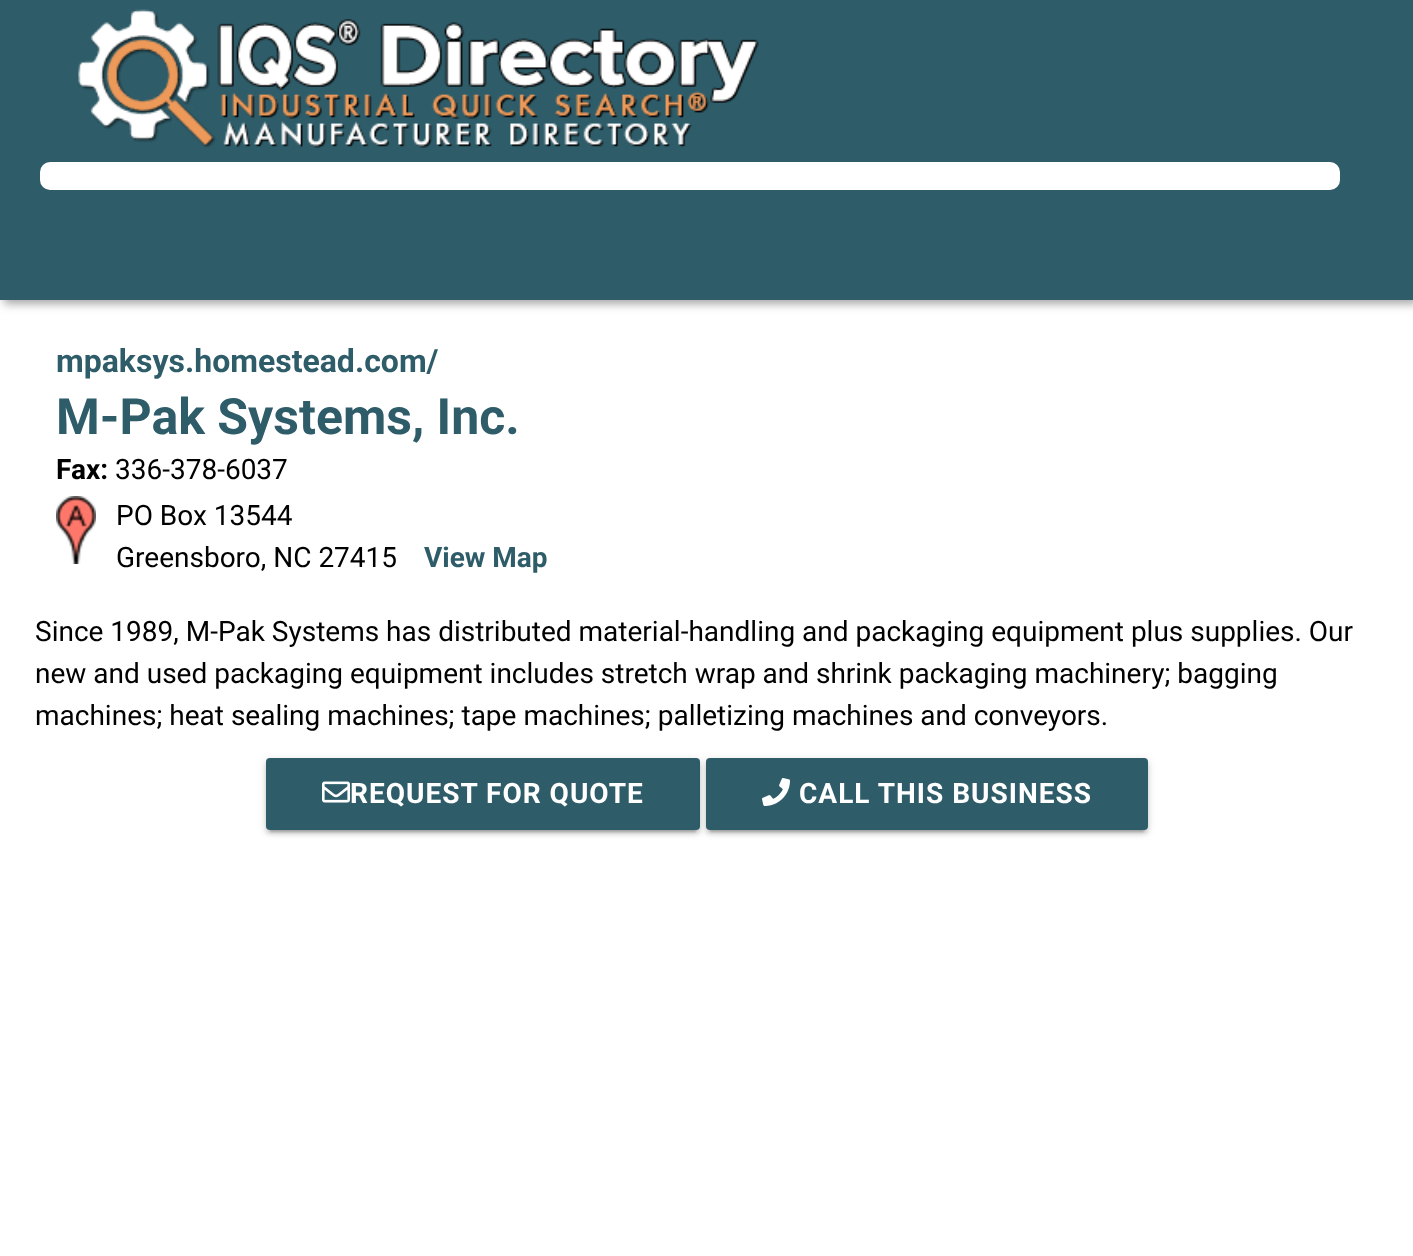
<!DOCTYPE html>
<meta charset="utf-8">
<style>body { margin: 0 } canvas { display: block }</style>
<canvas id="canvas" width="1413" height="1256"></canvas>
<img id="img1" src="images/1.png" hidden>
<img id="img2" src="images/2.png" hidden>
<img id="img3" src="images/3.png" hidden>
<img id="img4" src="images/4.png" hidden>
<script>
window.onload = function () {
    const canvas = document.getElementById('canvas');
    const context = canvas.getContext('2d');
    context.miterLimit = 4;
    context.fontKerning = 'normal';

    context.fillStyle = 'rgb(255, 255, 255)';
    context.fillRect(0, 0, 1413, 1256);
    context.fillStyle = 'rgba(50, 50, 50, 0.43)';
    context.filter = 'blur(5px)';
    context.beginPath();
    context.rect(4, 4, 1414, 300);
    context.fill();
    context.filter = 'none';
    context.fillStyle = 'rgb(46, 92, 105)';
    context.fillRect(0, 0, 1413, 300);
    context.drawImage(document.getElementById('img1'), 78, 9, 681, 139);
    context.fillStyle = 'rgb(255, 255, 255)';
    context.beginPath();
    context.roundRect(40, 162, 1300, 28, 10);
    context.fill();
    context.drawImage(document.getElementById('img2'), 56, 496, 40, 68);
    context.fillStyle = 'rgba(0, 0, 0, 0.2)';
    context.filter = 'blur(1px)';
    context.beginPath();
    context.rect(270, 768, 426, 64);
    context.fill();
    context.filter = 'none';
    context.fillStyle = 'rgba(0, 0, 0, 0.12)';
    context.filter = 'blur(5px)';
    context.beginPath();
    context.roundRect(266, 760, 434, 72, 4);
    context.fill();
    context.filter = 'none';
    context.fillStyle = 'rgba(0, 0, 0, 0.14)';
    context.filter = 'blur(2px)';
    context.beginPath();
    context.roundRect(266, 762, 434, 72, 4);
    context.fill();
    context.filter = 'none';
    context.fillStyle = 'rgb(46, 92, 105)';
    context.beginPath();
    context.roundRect(266, 758, 434, 72, 4);
    context.fill();
    context.drawImage(document.getElementById('img3'), 322, 781, 28, 22);
    context.fillStyle = 'rgba(0, 0, 0, 0.2)';
    context.filter = 'blur(1px)';
    context.beginPath();
    context.rect(710, 768, 434, 64);
    context.fill();
    context.filter = 'none';
    context.fillStyle = 'rgba(0, 0, 0, 0.12)';
    context.filter = 'blur(5px)';
    context.beginPath();
    context.roundRect(706, 760, 442, 72, 4);
    context.fill();
    context.filter = 'none';
    context.fillStyle = 'rgba(0, 0, 0, 0.14)';
    context.filter = 'blur(2px)';
    context.beginPath();
    context.roundRect(706, 762, 442, 72, 4);
    context.fill();
    context.filter = 'none';
    context.fillStyle = 'rgb(46, 92, 105)';
    context.beginPath();
    context.roundRect(706, 758, 442, 72, 4);
    context.fill();
    context.drawImage(document.getElementById('img4'), 762, 778, 28, 28);
    context.font = 'bold 32px Roboto';
    context.fillText('mpaksys.homestead.com/', 56, 372);
    context.font = 'bold 50px Roboto';
    context.fillText('M-Pak Systems, Inc.', 56, 434);
    context.font = 'bold 28px Roboto';
    context.fillStyle = 'rgb(0, 0, 0)';
    context.fillText('Fax:', 56, 479);
    context.font = '28px Roboto';
    context.fillText('336-378-6037', 115, 479);
    context.fillText('PO Box 13544', 116, 525);
    context.fillText('Greensboro, NC 27415', 116, 567);
    context.font = 'bold 28px Roboto';
    context.fillStyle = 'rgb(46, 92, 105)';
    context.fillText('View Map', 424, 567);
    context.font = '28px Roboto';
    context.fillStyle = 'rgb(0, 0, 0)';
    context.fillText('Since 1989, M-Pak Systems has distributed material-handling and packaging equipment plus supplies. Our', 35, 641);
    context.fillText('new and used packaging equipment includes stretch wrap and shrink packaging machinery; bagging', 35, 683);
    context.fillText('machines; heat sealing machines; tape machines; palletizing machines and conveyors.', 35, 725);
    context.letterSpacing = '1px';
    context.font = 'bold 28px Roboto';
    context.fillStyle = 'rgb(255, 255, 255)';
    context.fillText('REQUEST FOR QUOTE', 350, 803);
    context.fillText('CALL THIS BUSINESS', 799, 803);
};
</script>
